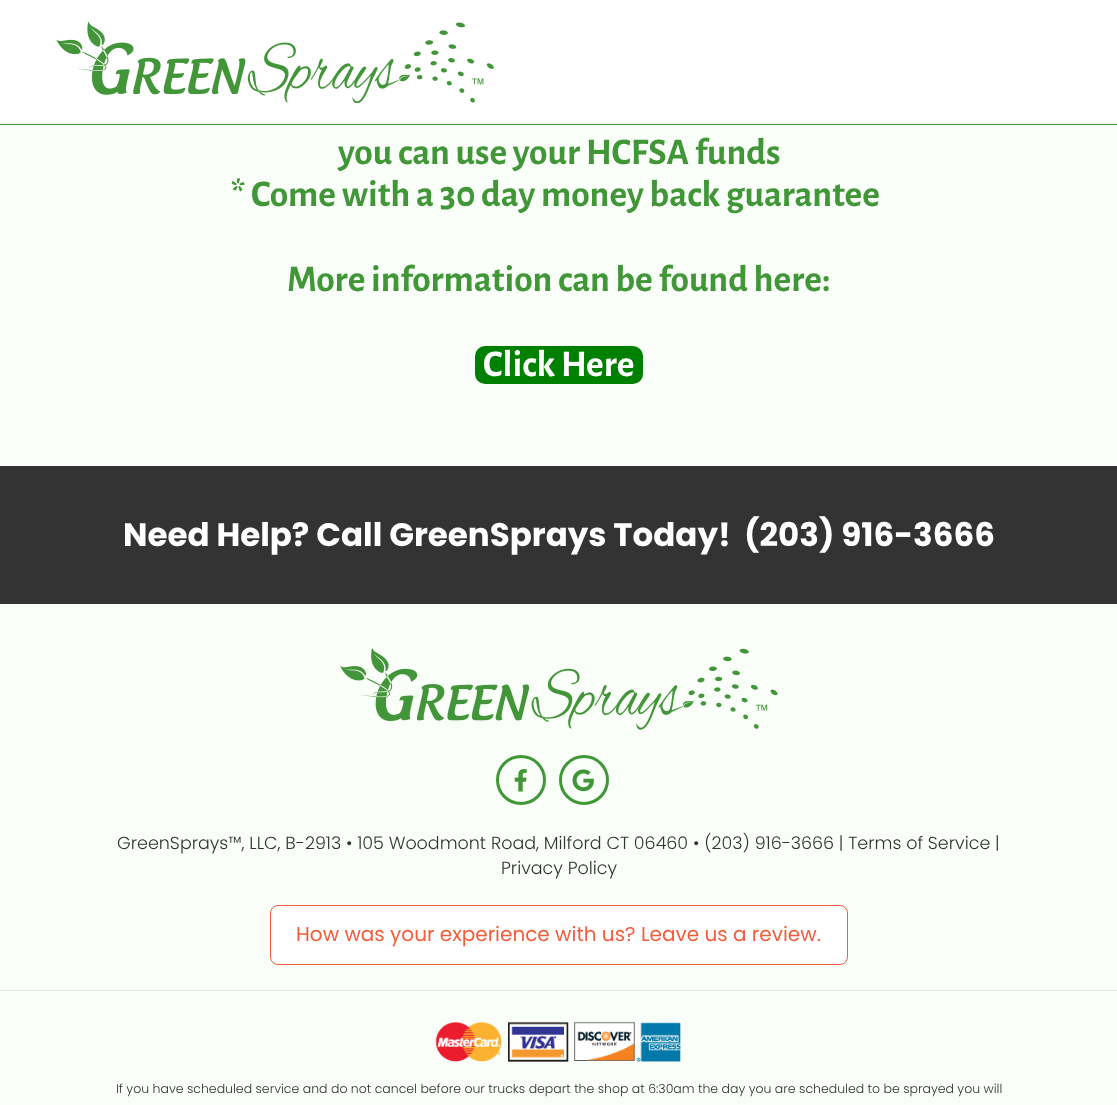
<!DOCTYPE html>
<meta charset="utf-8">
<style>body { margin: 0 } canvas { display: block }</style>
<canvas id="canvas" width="1117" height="1105"></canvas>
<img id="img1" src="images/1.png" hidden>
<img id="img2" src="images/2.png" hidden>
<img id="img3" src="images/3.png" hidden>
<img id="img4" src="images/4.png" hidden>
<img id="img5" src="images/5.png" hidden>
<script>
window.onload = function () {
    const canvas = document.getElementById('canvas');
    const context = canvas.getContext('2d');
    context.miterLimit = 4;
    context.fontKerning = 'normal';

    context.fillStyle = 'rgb(250, 254, 249)';
    context.fillRect(0, 0, 1117, 1105);
    context.fillStyle = 'rgb(255, 255, 255)';
    context.fillRect(0, 0, 1117, 124);
    context.fillStyle = 'rgb(65, 150, 56)';
    context.fillRect(0, 124, 1117, 1);
    context.drawImage(document.getElementById('img1'), 56, 21, 438, 82);
    context.fillStyle = 'rgb(0, 128, 0)';
    context.beginPath();
    context.roundRect(475, 346, 168, 38, 10);
    context.fill();
    context.fillStyle = 'rgb(51, 51, 51)';
    context.fillRect(0, 466, 1117, 138);
    context.drawImage(document.getElementById('img2'), 340, 648, 438, 82);
    context.beginPath();
    context.arc(521, 780, 23.5, 0, 2 * Math.PI);
    context.strokeStyle = 'rgb(65, 150, 56)';
    context.lineWidth = 3;
    context.stroke();
    context.drawImage(document.getElementById('img3'), 514, 769, 13, 23);
    context.beginPath();
    context.arc(584, 780, 23.5, 0, 2 * Math.PI);
    context.stroke();
    context.drawImage(document.getElementById('img4'), 572, 769, 22, 23);
    context.fillStyle = 'rgb(255, 255, 255)';
    context.beginPath();
    context.roundRect(270.5, 905.5, 577, 59, 7.5);
    context.fill();
    context.strokeStyle = 'rgb(241, 94, 59)';
    context.lineWidth = 1;
    context.stroke();
    context.fillStyle = 'rgb(227, 230, 226)';
    context.fillRect(0, 990, 1117, 1);
    context.drawImage(document.getElementById('img5'), 435, 1021, 247, 41);
    context.font = 'bold 37.5px Alegreya Sans';
    context.fillStyle = 'rgb(65, 150, 56)';
    context.fillText('you can use your HCFSA funds', 338, 164);
    context.fillText('* Come with a 30 day money back guarantee', 231, 206);
    context.fillText('More information can be found here:', 287, 291);
    context.fillStyle = 'rgb(255, 255, 255)';
    context.fillText('Click Here', 483, 376);
    context.font = 'bold 32.5px Poppins';
    context.fillText('Need Help? Call GreenSprays Today!', 123, 546);
    context.fillText('(203) 916-3666', 744, 546);
    context.font = '300 17.5px Poppins';
    context.fillStyle = 'rgb(51, 51, 51)';
    context.fillText('GreenSprays™, LLC, B-2913 • 105 Woodmont Road, Milford CT 06460 • (203) 916-3666 | Terms of Service |', 117, 849);
    context.fillText('Privacy Policy', 501, 874);
    context.font = '20px Poppins';
    context.fillStyle = 'rgb(241, 94, 59)';
    context.fillText('How was your experience with us? Leave us a review.', 296, 941);
    context.font = '300 12.5px Poppins';
    context.fillStyle = 'rgb(51, 51, 51)';
    context.fillText('If you have scheduled service and do not cancel before our trucks depart the shop at 6:30am the day you are scheduled to be sprayed you will', 116, 1093);
};
</script>
